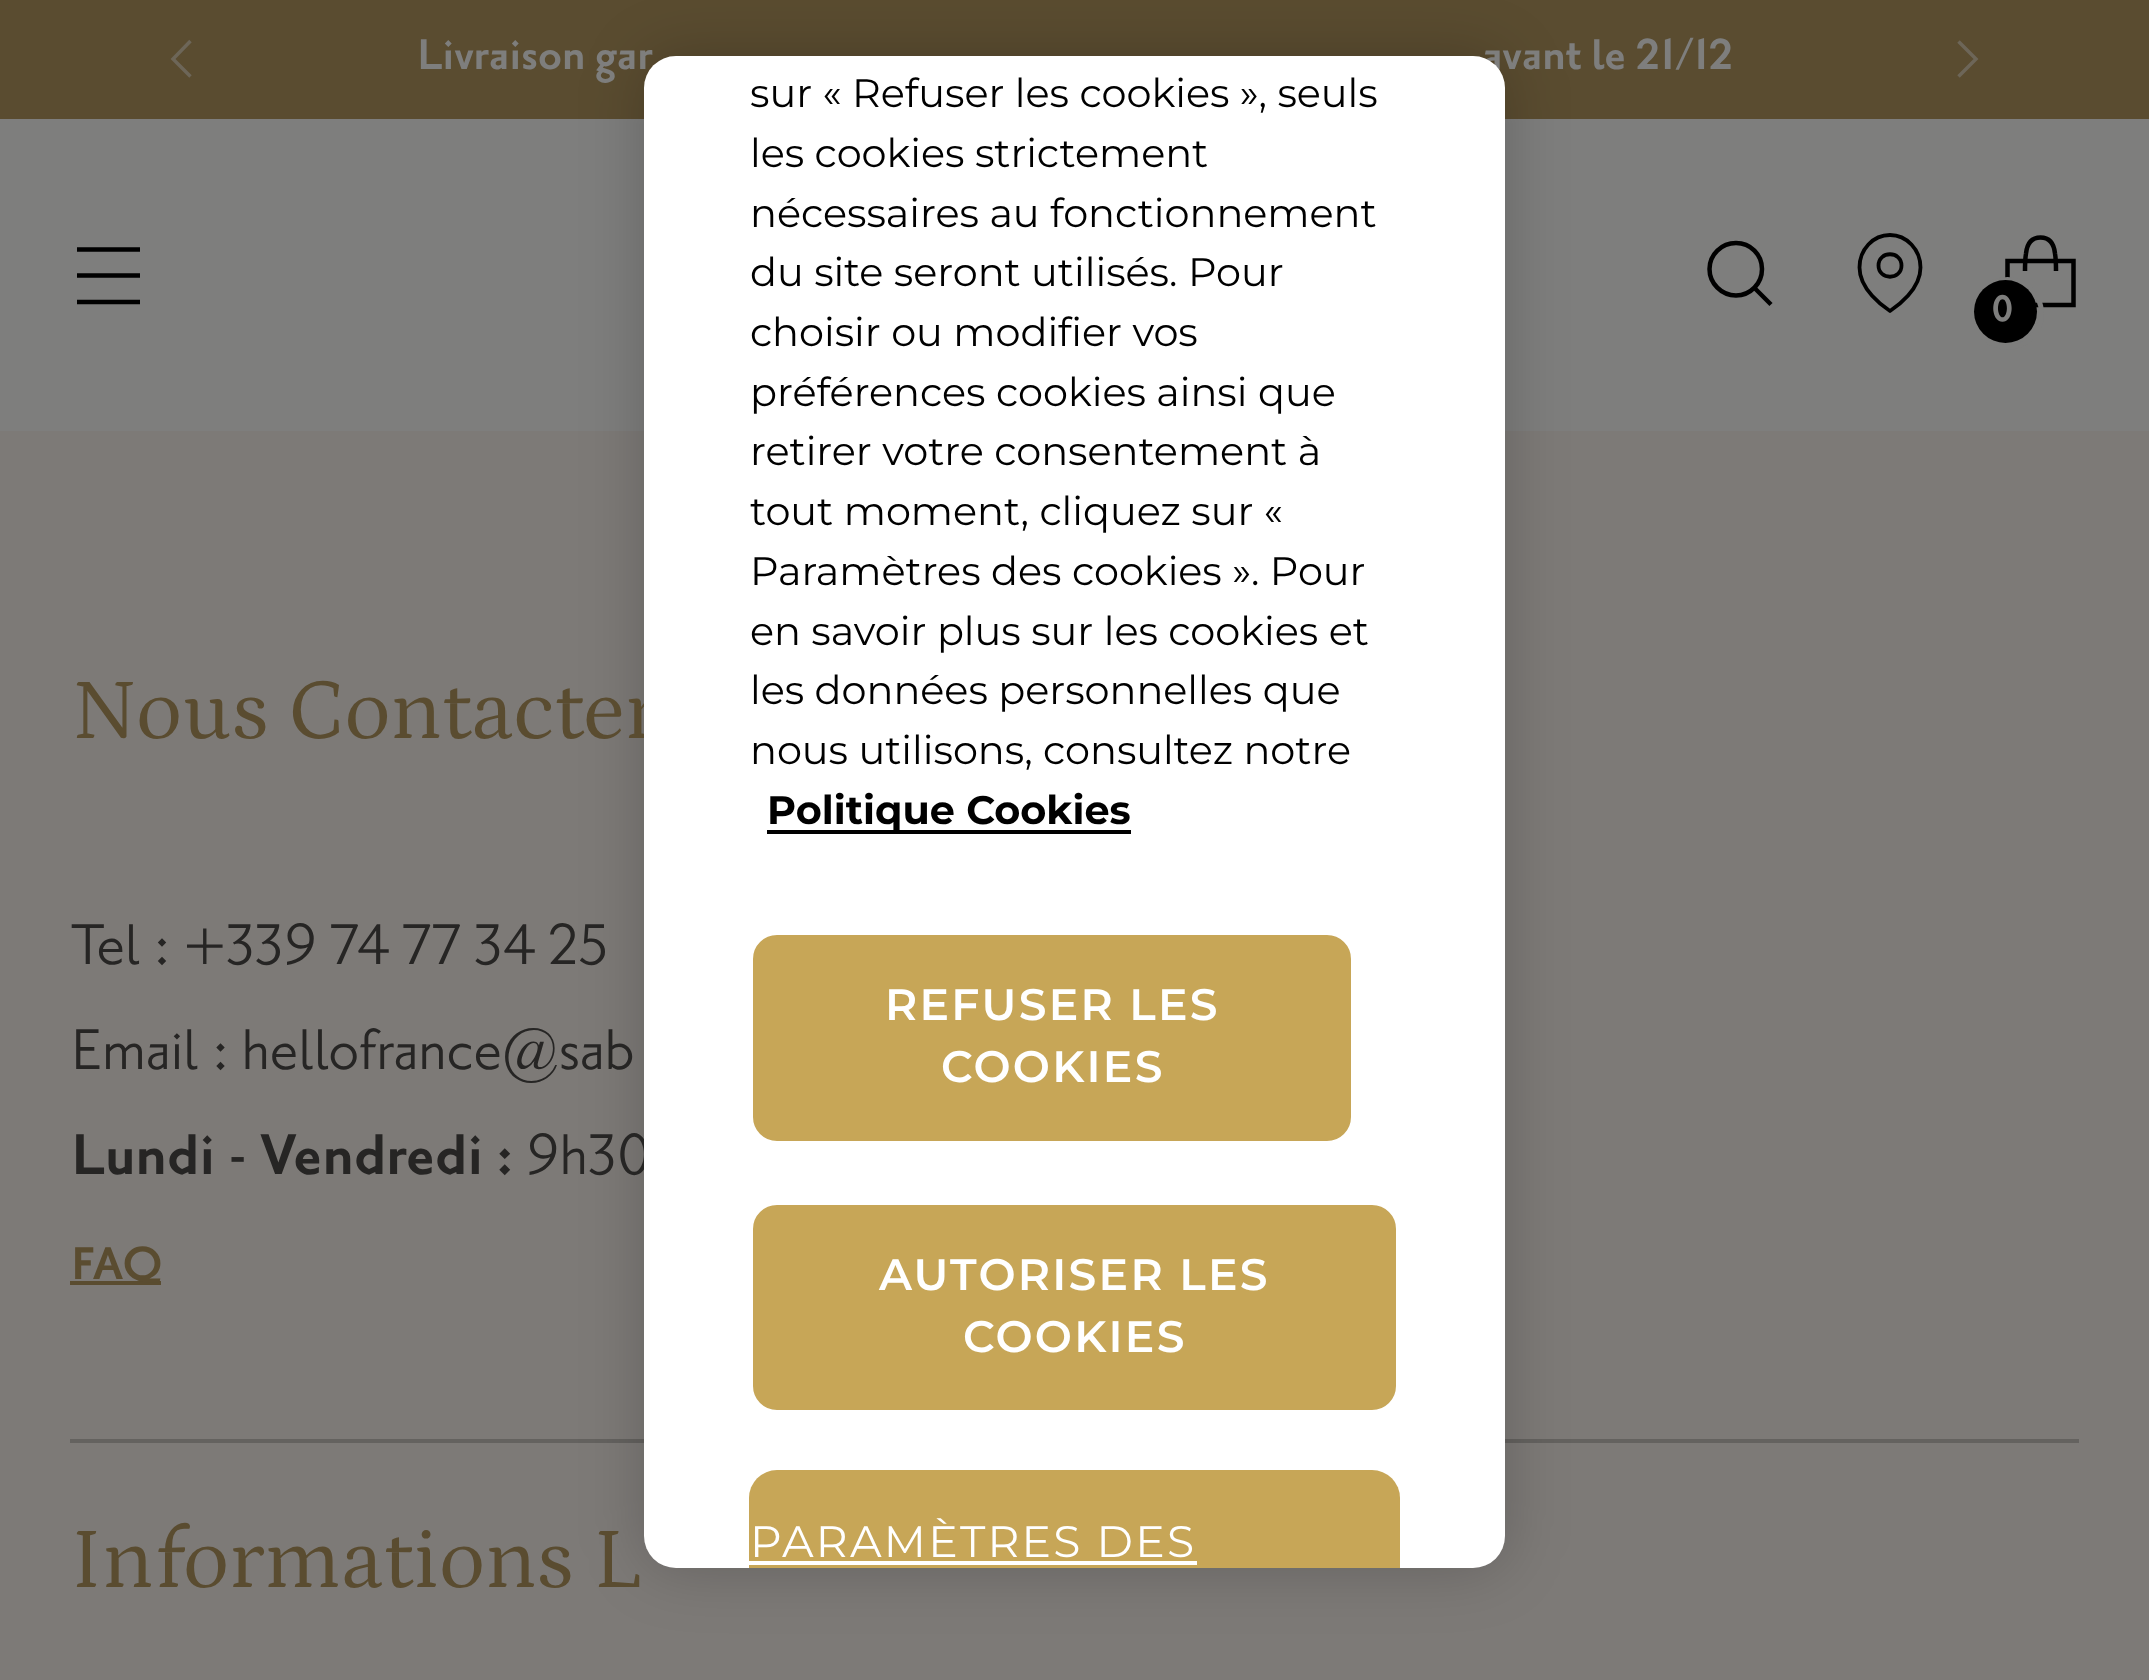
<!DOCTYPE html>
<meta charset="utf-8">
<style>body { margin: 0 } canvas { display: block }</style>
<canvas id="canvas" width="2149" height="1680"></canvas>
<script>
window.onload = function () {
    const canvas = document.getElementById('canvas');
    const context = canvas.getContext('2d');
    context.miterLimit = 4;
    context.fontKerning = 'normal';

    context.fillStyle = 'rgb(125, 122, 119)';
    context.fillRect(0, 0, 2149, 1680);
    context.fillStyle = 'rgb(90, 76, 48)';
    context.fillRect(0, 0, 2149, 119);
    context.beginPath();
    context.moveTo(190.5, 41);
    context.lineTo(173, 59);
    context.lineTo(190.5, 76.5);
    context.strokeStyle = 'rgb(109, 102, 88)';
    context.lineWidth = 3.5;
    context.stroke();
    context.beginPath();
    context.moveTo(1958.5, 76.5);
    context.lineTo(1976, 59);
    context.lineTo(1958.5, 41.5);
    context.stroke();
    context.fillStyle = 'rgb(126, 126, 125)';
    context.fillRect(0, 119, 2149, 312);
    context.beginPath();
    context.moveTo(77, 275.5);
    context.lineTo(140, 275.5);
    context.moveTo(77, 249.5);
    context.lineTo(140, 249.5);
    context.moveTo(77, 302);
    context.lineTo(140, 302);
    context.strokeStyle = 'rgb(0, 0, 0)';
    context.lineWidth = 4.5;
    context.stroke();
    context.beginPath();
    context.moveTo(1736, 295.5);
    context.bezierCurveTo(1750.5, 295.5, 1762, 283.5, 1762, 269);
    context.bezierCurveTo(1762, 254.5, 1750.5, 243, 1736, 243);
    context.bezierCurveTo(1721.5, 243, 1709.5, 254.5, 1709.5, 269);
    context.bezierCurveTo(1709.5, 283.5, 1721.5, 295.5, 1736, 295.5);
    context.closePath();
    context.lineCap = 'round';
    context.stroke();
    context.beginPath();
    context.moveTo(1754.5, 288);
    context.lineTo(1771, 304.5);
    context.lineCap = 'butt';
    context.stroke();
    context.beginPath();
    context.moveTo(1890, 235);
    context.bezierCurveTo(1873, 235, 1859.5, 249.5, 1859.5, 267.5);
    context.bezierCurveTo(1859.5, 289.5, 1883, 306.5, 1890, 311);
    context.bezierCurveTo(1897, 306.5, 1920.5, 289.5, 1920.5, 267.5);
    context.bezierCurveTo(1920.5, 249.5, 1906.5, 235, 1890, 235);
    context.closePath();
    context.lineWidth = 3.8;
    context.lineCap = 'round';
    context.lineJoin = 'round';
    context.stroke();
    context.beginPath();
    context.moveTo(1901.5, 265.5);
    context.bezierCurveTo(1901.5, 280.5, 1878.5, 280.5, 1878.5, 265.5);
    context.bezierCurveTo(1878.5, 250.5, 1901.5, 250.5, 1901.5, 265.5);
    context.closePath();
    context.stroke();
    context.beginPath();
    context.moveTo(2056, 271);
    context.bezierCurveTo(2056, 265.5, 2056, 259.5, 2055, 253.5);
    context.bezierCurveTo(2054, 244, 2049.5, 237.5, 2040.5, 237.5);
    context.bezierCurveTo(2031.5, 237.5, 2027, 244, 2026, 253.5);
    context.bezierCurveTo(2025, 259.5, 2025, 265.5, 2025, 271);
    context.lineWidth = 4.5;
    context.lineCap = 'butt';
    context.lineJoin = 'bevel';
    context.stroke();
    context.beginPath();
    context.moveTo(2073.5, 305);
    context.lineTo(2073.5, 261);
    context.lineTo(2007.5, 261);
    context.lineTo(2007.5, 305);
    context.closePath();
    context.lineJoin = 'miter';
    context.stroke();
    context.beginPath();
    context.arc(2007.5, 313.5, 34, 0, 2 * Math.PI);
    context.strokeStyle = 'rgb(126, 126, 125)';
    context.lineWidth = 5;
    context.stroke();
    context.fillStyle = 'rgb(0, 0, 0)';
    context.beginPath();
    context.arc(2005.5, 311.5, 31.5, 0, 2 * Math.PI);
    context.fill();
    context.fillStyle = 'rgb(100, 98, 95)';
    context.fillRect(70, 1439, 2009, 4);
    context.fillStyle = 'rgb(90, 76, 48)';
    context.fillRect(70, 1281, 91, 4);
    context.fillStyle = 'rgba(0, 0, 0, 0.2)';
    context.filter = 'blur(31.5px)';
    context.beginPath();
    context.roundRect(644, 56, 861, 1512, 32);
    context.fill();
    context.filter = 'none';
    context.font = 'bold 52.5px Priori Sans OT';
    context.fillStyle = 'rgb(126, 126, 125)';
    context.fillText('Livraison gar', 417, 69);
    context.fillText('avant le 21/12', 1482, 69);
    context.letterSpacing = '4px';
    context.font = 'bold 45px Priori Sans OT';
    context.fillText('0', 1991, 321);
    context.letterSpacing = '0px';
    context.font = '87.5px Petrona';
    context.fillStyle = 'rgb(90, 76, 48)';
    context.fillText('Nous Contacter', 71, 738);
    context.font = '70px Priori Sans OT';
    context.fillStyle = 'rgb(38, 37, 36)';
    context.fillText('Tel : +339 74 77 34 25', 71, 964);
    context.fillText('Email : hellofrance@sab', 71, 1069);
    context.font = 'bold 70px Priori Sans OT';
    context.fillText('Lundi - Vendredi :', 71, 1174);
    context.font = '70px Priori Sans OT';
    context.fillText('9h30', 526, 1174);
    context.font = 'bold 56px Priori Sans OT';
    context.fillStyle = 'rgb(90, 76, 48)';
    context.fillText('FAQ', 71, 1279);
    context.font = '87.5px Petrona';
    context.fillText('Informations L', 71, 1587);
    context.fillStyle = 'rgb(255, 255, 255)';
    context.beginPath();
    context.roundRect(644, 56, 861, 1512, 32);
    context.fill();
    context.font = '39.8px Montserrat';
    context.fillStyle = 'rgb(0, 0, 0)';
    context.fillText('sur « Refuser les cookies », seuls', 750, 107);
    context.fillText('les cookies strictement', 750, 167);
    context.fillText('nécessaires au fonctionnement', 750, 227);
    context.fillText('du site seront utilisés. Pour', 750, 286);
    context.fillText('choisir ou modifier vos', 750, 346);
    context.fillText('préférences cookies ainsi que', 750, 406);
    context.fillText('retirer votre consentement à', 750, 465);
    context.fillText('tout moment, cliquez sur «', 750, 525);
    context.fillText('Paramètres des cookies ». Pour', 750, 585);
    context.fillText('en savoir plus sur les cookies et', 750, 645);
    context.fillText('les données personnelles que', 750, 704);
    context.fillText('nous utilisons, consultez notre', 750, 764);
    context.fillRect(767, 830, 364, 4);
    context.font = 'bold 39.8px Montserrat';
    context.fillText('Politique Cookies', 767, 824);
    context.fillStyle = 'rgb(199, 166, 87)';
    context.beginPath();
    context.roundRect(751, 933, 602, 210, 26);
    context.fill();
    context.strokeStyle = 'rgb(255, 255, 255)';
    context.lineWidth = 4;
    context.stroke();
    context.letterSpacing = '2.25px';
    context.font = '600 44.1px Montserrat';
    context.fillStyle = 'rgb(255, 255, 255)';
    context.fillText('REFUSER LES', 885, 1020);
    context.fillText('COOKIES', 941, 1082);
    context.fillStyle = 'rgb(199, 166, 87)';
    context.beginPath();
    context.roundRect(751, 1203, 647, 209, 26);
    context.fill();
    context.stroke();
    context.fillStyle = 'rgb(255, 255, 255)';
    context.fillText('AUTORISER LES', 879, 1290);
    context.fillText('COOKIES', 963, 1352);
    context.fillStyle = 'rgb(199, 166, 87)';
    context.beginPath();
    context.roundRect(749, 1470, 651, 98, [28, 28, 0, 0]);
    context.fill();
    context.font = '44.1px Montserrat';
    context.fillStyle = 'rgb(255, 255, 255)';
    context.fillText('PARAMÈTRES DES', 750, 1557);
    context.fillRect(749, 1561, 448, 4);
};
</script>
